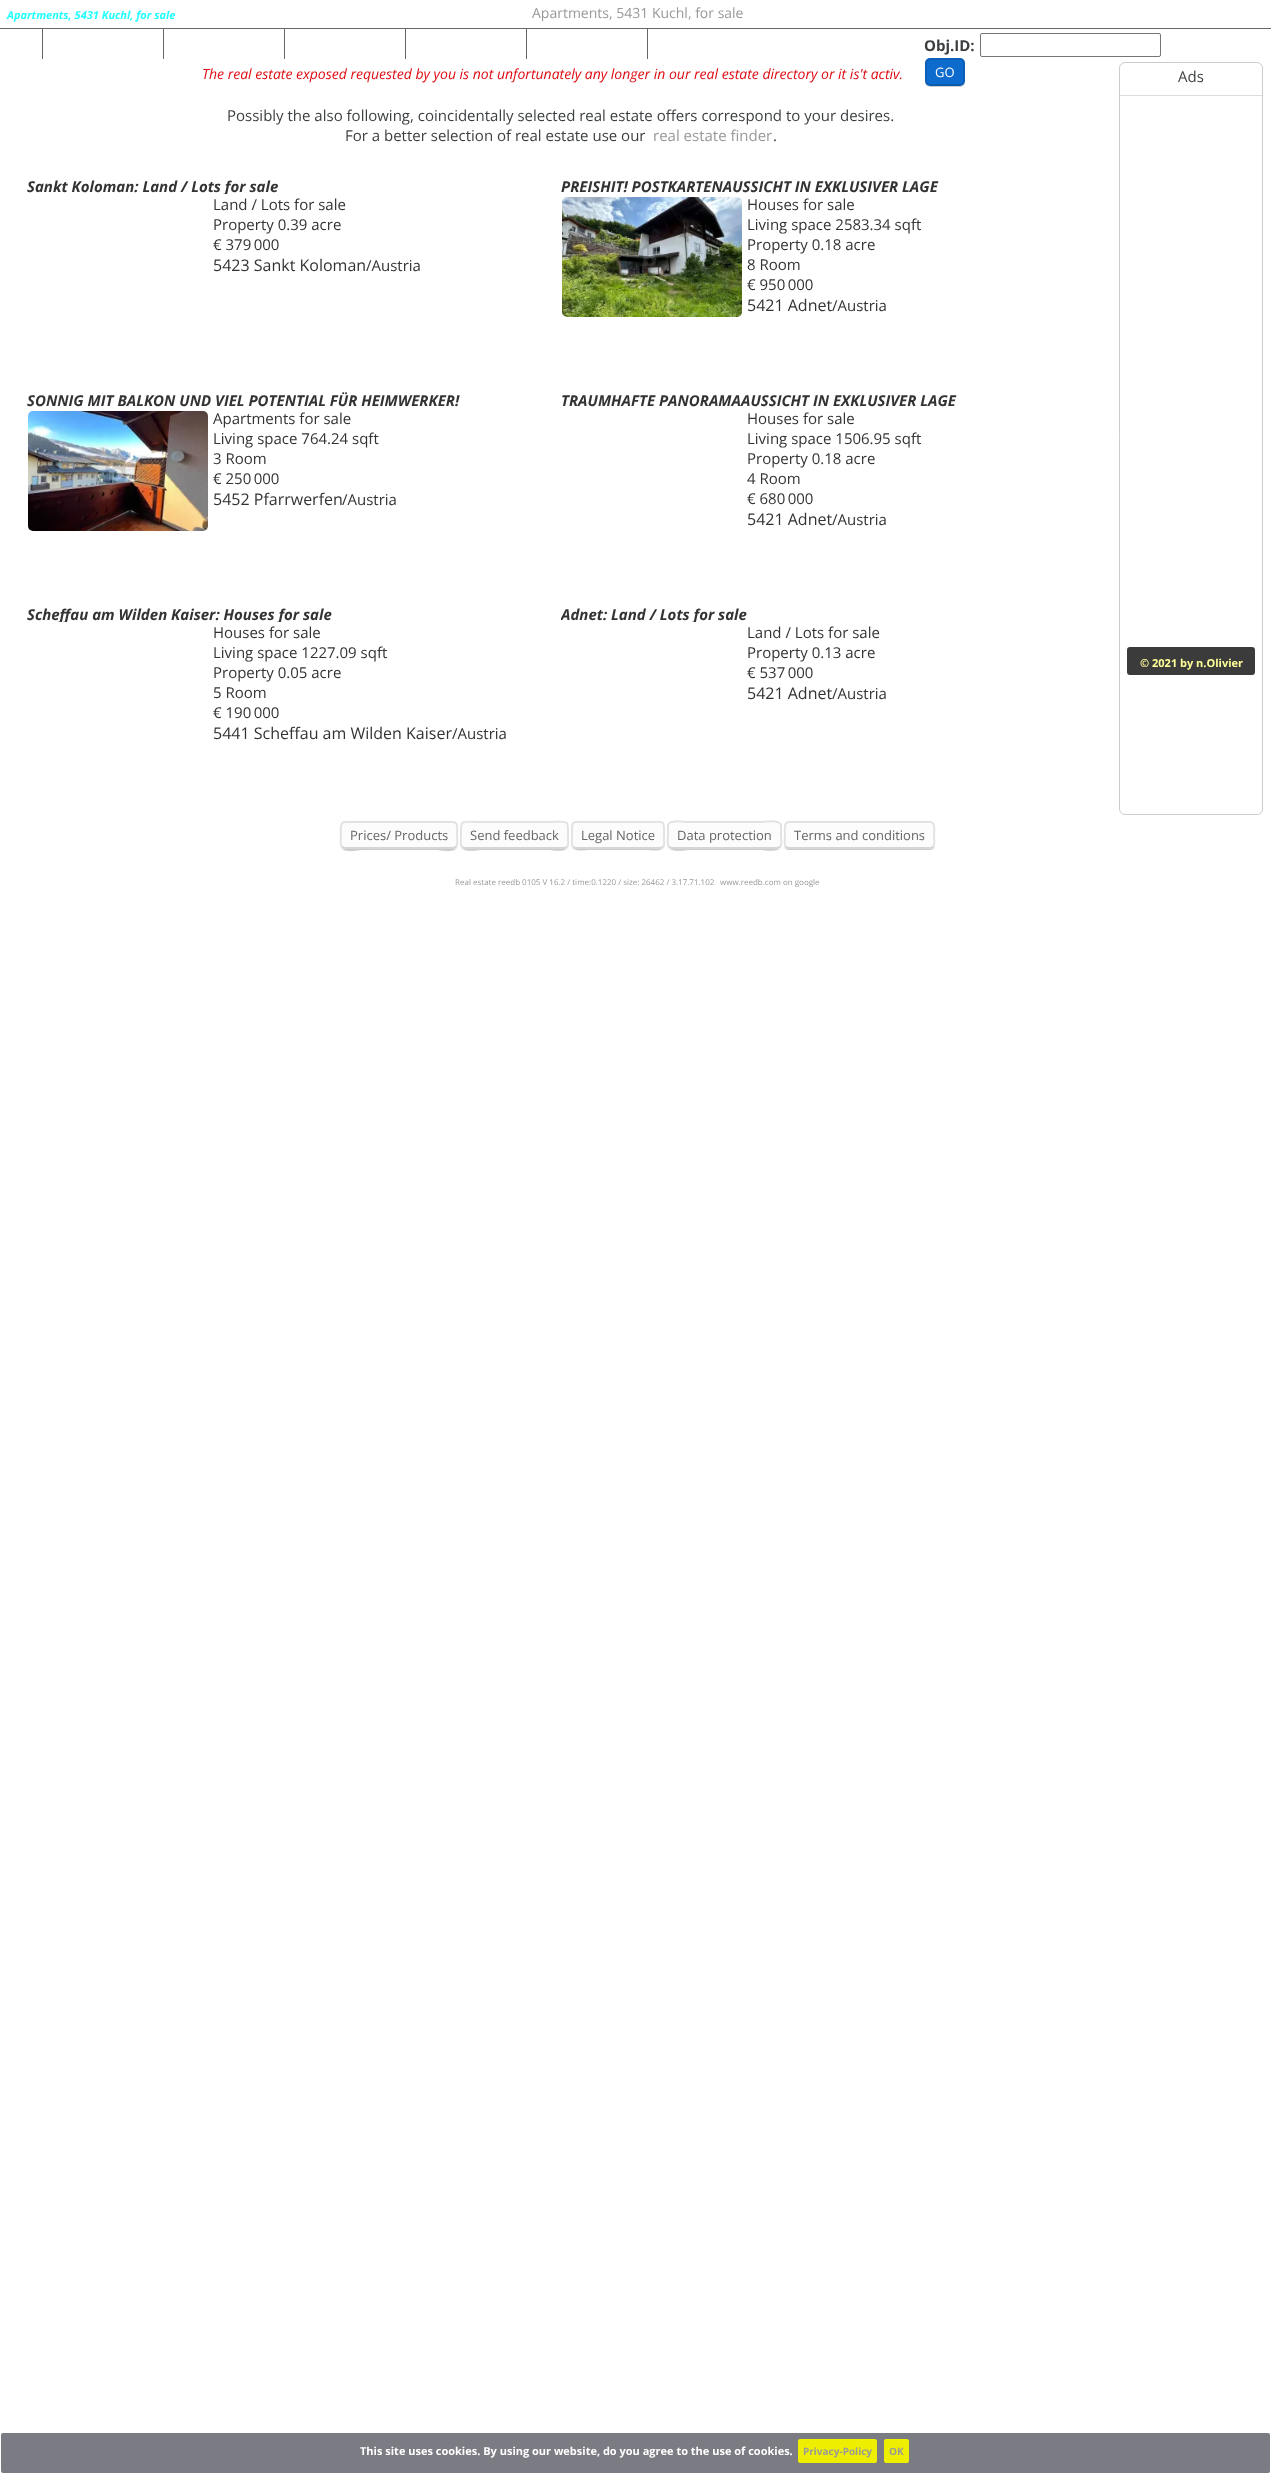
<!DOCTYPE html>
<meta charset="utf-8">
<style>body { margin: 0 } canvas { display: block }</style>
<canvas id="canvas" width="1271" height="2473"></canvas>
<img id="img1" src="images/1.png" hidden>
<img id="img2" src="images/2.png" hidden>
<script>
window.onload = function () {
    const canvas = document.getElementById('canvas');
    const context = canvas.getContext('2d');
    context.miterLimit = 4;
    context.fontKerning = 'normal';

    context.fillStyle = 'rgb(255, 255, 255)';
    context.fillRect(0, 0, 1271, 2473);
    context.fillStyle = 'rgb(102, 102, 102)';
    context.fillRect(0, 28, 1271, 1);
    context.fillRect(163, 29, 1, 30);
    context.fillRect(42, 29, 1, 30);
    context.fillRect(284, 29, 1, 30);
    context.fillRect(405, 29, 1, 30);
    context.fillRect(526, 29, 1, 30);
    context.fillRect(647, 29, 1, 30);
    context.beginPath();
    context.roundRect(980.5, 33.5, 180, 23, 1.5);
    context.strokeStyle = 'rgb(118, 118, 118)';
    context.stroke();
    context.fillStyle = 'rgb(204, 204, 204)';
    context.beginPath();
    context.moveTo(925, 81);
    context.bezierCurveTo(925, 88, 930, 87, 935, 87);
    context.lineTo(955, 87);
    context.bezierCurveTo(960, 87, 965, 88, 965, 81);
    context.bezierCurveTo(965, 84, 963, 86, 960, 86);
    context.lineTo(930, 86);
    context.bezierCurveTo(927, 86, 925, 84, 925, 81);
    context.closePath();
    context.fill();
    context.fillStyle = 'rgb(14, 107, 206)';
    context.beginPath();
    context.roundRect(925, 58, 40, 28, 5);
    context.fill();
    context.beginPath();
    context.moveTo(963, 84);
    context.bezierCurveTo(962, 84.5, 961, 85, 960, 85);
    context.lineTo(930, 85);
    context.bezierCurveTo(929, 85, 928, 84.5, 927, 84);
    context.strokeStyle = 'rgba(0, 0, 0, 0.15)';
    context.lineWidth = 2;
    context.stroke();
    context.beginPath();
    context.moveTo(927, 84);
    context.bezierCurveTo(925.5, 82.5, 926, 80, 926, 78);
    context.lineTo(926, 62);
    context.bezierCurveTo(927, 58, 932, 59, 935, 59);
    context.lineTo(955, 59);
    context.bezierCurveTo(958, 59, 963, 58, 964, 62);
    context.lineTo(964, 78);
    context.bezierCurveTo(964, 80, 964.5, 82.5, 963, 84);
    context.strokeStyle = 'rgba(0, 0, 0, 0.1)';
    context.stroke();
    context.drawImage(document.getElementById('img1'), 562, 197, 180, 120);
    context.drawImage(document.getElementById('img2'), 28, 411, 180, 120);
    context.beginPath();
    context.roundRect(1119.5, 62.5, 143, 752, 5.5);
    context.strokeStyle = 'rgb(204, 204, 204)';
    context.lineWidth = 1;
    context.stroke();
    context.fillStyle = 'rgb(221, 221, 221)';
    context.fillRect(1120, 95, 142, 1);
    context.fillStyle = 'rgb(59, 59, 59)';
    context.beginPath();
    context.roundRect(1127, 647, 128, 28, 3);
    context.fill();
    context.fillStyle = 'rgb(204, 204, 204)';
    context.beginPath();
    context.moveTo(340, 844);
    context.bezierCurveTo(340, 855, 358, 850, 363, 850);
    context.lineTo(435, 850);
    context.bezierCurveTo(440, 850, 458, 855, 458, 844);
    context.bezierCurveTo(458, 847, 456, 849, 453, 849);
    context.lineTo(345, 849);
    context.bezierCurveTo(342, 849, 340, 847, 340, 844);
    context.closePath();
    context.fill();
    context.fillStyle = 'rgb(252, 252, 252)';
    context.beginPath();
    context.roundRect(340, 821, 118, 28, 5);
    context.fill();
    context.beginPath();
    context.moveTo(456, 847);
    context.lineTo(453.5, 848);
    context.lineTo(363, 848);
    context.lineTo(345, 848);
    context.lineTo(342, 847);
    context.strokeStyle = 'rgb(214, 214, 214)';
    context.lineWidth = 2;
    context.stroke();
    context.beginPath();
    context.moveTo(342, 847);
    context.bezierCurveTo(339.5, 844.5, 341, 838, 341, 835);
    context.bezierCurveTo(341, 832, 339, 822, 345, 822);
    context.lineTo(453, 822);
    context.bezierCurveTo(459, 822, 457, 832, 457, 835);
    context.bezierCurveTo(457, 838, 458.5, 844.5, 456, 847);
    context.strokeStyle = 'rgba(0, 0, 0, 0.1)';
    context.stroke();
    context.fillStyle = 'rgb(204, 204, 204)';
    context.beginPath();
    context.moveTo(460, 844);
    context.bezierCurveTo(460, 854, 476, 850, 482, 850);
    context.lineTo(548, 850);
    context.bezierCurveTo(553, 850, 569, 854, 569, 844);
    context.bezierCurveTo(569, 847, 567, 849, 564, 849);
    context.lineTo(465, 849);
    context.bezierCurveTo(462, 849, 460, 847, 460, 844);
    context.closePath();
    context.fill();
    context.fillStyle = 'rgb(252, 252, 252)';
    context.beginPath();
    context.roundRect(460, 821, 109, 28, 5);
    context.fill();
    context.beginPath();
    context.moveTo(567, 847);
    context.bezierCurveTo(566, 847.5, 565, 848, 564, 848);
    context.lineTo(465, 848);
    context.bezierCurveTo(464, 848, 463, 847.5, 462, 847);
    context.strokeStyle = 'rgb(214, 214, 214)';
    context.stroke();
    context.beginPath();
    context.moveTo(462, 847);
    context.bezierCurveTo(460, 844.5, 461, 840.5, 461, 838);
    context.bezierCurveTo(461, 818, 459, 822, 481.5, 822);
    context.lineTo(547.5, 822);
    context.bezierCurveTo(570, 822, 568, 818, 568, 838);
    context.bezierCurveTo(568, 840.5, 569, 844.5, 567, 847);
    context.strokeStyle = 'rgb(227, 227, 227)';
    context.stroke();
    context.fillStyle = 'rgb(204, 204, 204)';
    context.beginPath();
    context.moveTo(571, 844);
    context.bezierCurveTo(571, 853, 584, 850, 590, 850);
    context.lineTo(646, 850);
    context.bezierCurveTo(652, 850, 665, 853, 665, 844);
    context.bezierCurveTo(665, 847, 663, 849, 660, 849);
    context.lineTo(576, 849);
    context.bezierCurveTo(573, 849, 571, 847, 571, 844);
    context.closePath();
    context.fill();
    context.fillStyle = 'rgb(252, 252, 252)';
    context.beginPath();
    context.roundRect(571, 821, 94, 28, 5);
    context.fill();
    context.beginPath();
    context.moveTo(663, 847);
    context.lineTo(660.5, 848);
    context.lineTo(575.5, 848);
    context.lineTo(573, 847);
    context.strokeStyle = 'rgb(214, 214, 214)';
    context.stroke();
    context.beginPath();
    context.moveTo(573, 847);
    context.bezierCurveTo(571, 844.5, 572, 840.5, 572, 838);
    context.bezierCurveTo(572, 819, 569.5, 822, 590, 822);
    context.lineTo(646, 822);
    context.bezierCurveTo(666.5, 822, 664, 819, 664, 838);
    context.bezierCurveTo(664, 840.5, 665, 844.5, 663, 847);
    context.strokeStyle = 'rgb(227, 227, 227)';
    context.stroke();
    context.fillStyle = 'rgb(204, 204, 204)';
    context.beginPath();
    context.moveTo(667, 844);
    context.bezierCurveTo(667, 854, 685, 850, 690, 850);
    context.lineTo(760, 850);
    context.bezierCurveTo(764, 850, 782, 854, 782, 844);
    context.bezierCurveTo(782, 847, 780, 849, 777, 849);
    context.lineTo(672, 849);
    context.bezierCurveTo(669, 849, 667, 847, 667, 844);
    context.closePath();
    context.fill();
    context.fillStyle = 'rgb(252, 252, 252)';
    context.beginPath();
    context.roundRect(667, 821, 115, 28, 5);
    context.fill();
    context.beginPath();
    context.moveTo(780, 847);
    context.lineTo(777, 848);
    context.lineTo(671.5, 848);
    context.lineTo(669, 847);
    context.strokeStyle = 'rgb(214, 214, 214)';
    context.stroke();
    context.beginPath();
    context.moveTo(669, 847);
    context.bezierCurveTo(666.5, 844.5, 668, 838, 668, 835);
    context.lineTo(668, 825);
    context.bezierCurveTo(669.5, 819, 684, 822, 689.5, 822);
    context.lineTo(759.5, 822);
    context.bezierCurveTo(765, 822, 779.5, 819, 781, 825);
    context.lineTo(781, 835);
    context.bezierCurveTo(781, 838, 782.5, 844.5, 780, 847);
    context.strokeStyle = 'rgba(0, 0, 0, 0.1)';
    context.stroke();
    context.fillStyle = 'rgb(204, 204, 204)';
    context.beginPath();
    context.moveTo(784, 844);
    context.lineTo(784, 845);
    context.bezierCurveTo(784, 848, 786, 850, 789, 850);
    context.lineTo(930, 850);
    context.bezierCurveTo(933, 850, 935, 848, 935, 845);
    context.lineTo(935, 844);
    context.bezierCurveTo(935, 847, 933, 849, 930, 849);
    context.lineTo(789, 849);
    context.bezierCurveTo(786, 849, 784, 847, 784, 844);
    context.closePath();
    context.fill();
    context.fillStyle = 'rgb(252, 252, 252)';
    context.beginPath();
    context.roundRect(784, 821, 151, 28, 5);
    context.fill();
    context.beginPath();
    context.moveTo(933, 847);
    context.bezierCurveTo(932, 847.5, 931, 848, 930, 848);
    context.lineTo(789, 848);
    context.bezierCurveTo(788, 848, 787, 847.5, 786, 847);
    context.strokeStyle = 'rgb(214, 214, 214)';
    context.stroke();
    context.beginPath();
    context.moveTo(786, 847);
    context.bezierCurveTo(783.5, 844.5, 785, 838, 785, 835);
    context.bezierCurveTo(785, 832, 783, 822, 789, 822);
    context.lineTo(930, 822);
    context.bezierCurveTo(936, 822, 934, 832, 934, 835);
    context.bezierCurveTo(934, 838, 935.5, 844.5, 933, 847);
    context.strokeStyle = 'rgba(0, 0, 0, 0.1)';
    context.stroke();
    context.fillStyle = 'rgb(123, 123, 131)';
    context.beginPath();
    context.roundRect(1, 2433, 1269, 40, 2);
    context.fill();
    context.fillStyle = 'rgb(238, 238, 0)';
    context.beginPath();
    context.roundRect(798, 2439, 79, 24, 2);
    context.fill();
    context.beginPath();
    context.roundRect(884, 2439, 25, 24, 2);
    context.fill();
    context.font = '14px Open Sans';
    context.fillStyle = 'rgb(153, 153, 153)';
    context.fillText('Apartments, 5431 Kuchl, for sale', 532, 18);
    context.font = 'italic bold 11px Open Sans';
    context.fillStyle = 'rgb(34, 255, 255)';
    context.fillText('Apartments, 5431 Kuchl, for sale', 7, 19);
    context.font = 'bold 15px Open Sans';
    context.fillStyle = 'rgb(60, 63, 65)';
    context.fillText('Obj.ID:', 924, 51);
    context.font = '13px Open Sans';
    context.fillStyle = 'rgb(255, 255, 255)';
    context.fillText('GO', 935, 77);
    context.font = 'italic 14px Open Sans';
    context.fillStyle = 'rgb(223, 10, 17)';
    context.fillText('The real estate exposed requested by you is not unfortunately any longer in our real estate directory or it is\'t activ.', 202, 79);
    context.font = '15px Open Sans';
    context.fillStyle = 'rgb(60, 63, 65)';
    context.fillText('Possibly the also following, coincidentally selected real estate offers correspond to your desires.', 227, 121);
    context.fillText('For a better selection of real estate use our', 345, 141);
    context.fillStyle = 'rgb(153, 153, 153)';
    context.fillText('real estate finder', 653, 141);
    context.fillStyle = 'rgb(60, 63, 65)';
    context.fillText('.', 773, 141);
    context.save();
    context.beginPath();
    context.rect(27, 176, 521, 18);
    context.clip();
    context.font = 'italic bold 15px Open Sans';
    context.fillStyle = 'rgb(51, 51, 51)';
    context.fillText('Sankt Koloman: Land / Lots for sale', 27, 192);
    context.restore();
    context.fillStyle = 'rgb(51, 51, 51)';
    context.fillText('Land / Lots for sale', 213, 210);
    context.fillText('Property 0.39 acre', 213, 230);
    context.fillText('€ 379 000', 213, 250);
    context.font = '16px Open Sans';
    context.fillText('5423 Sankt Koloman', 213, 271);
    context.font = '15px Open Sans';
    context.fillText('/Austria', 366, 271);
    context.font = 'italic bold 15px Open Sans';
    context.fillText('PREISHIT! POSTKARTENAUSSICHT IN EXKLUSIVER LAGE', 561, 192);
    context.font = '15px Open Sans';
    context.fillText('Houses for sale', 747, 210);
    context.fillText('Living space 2583.34 sqft', 747, 230);
    context.fillText('Property 0.18 acre', 747, 250);
    context.fillText('8 Room', 747, 270);
    context.fillText('€ 950 000', 747, 290);
    context.font = '16px Open Sans';
    context.fillText('5421 Adnet', 747, 311);
    context.font = '15px Open Sans';
    context.fillText('/Austria', 832, 311);
    context.font = 'italic bold 15px Open Sans';
    context.fillText('SONNIG MIT BALKON UND VIEL POTENTIAL FÜR HEIMWERKER!', 27, 406);
    context.font = '15px Open Sans';
    context.fillText('Apartments for sale', 213, 424);
    context.fillText('Living space 764.24 sqft', 213, 444);
    context.fillText('3 Room', 213, 464);
    context.fillText('€ 250 000', 213, 484);
    context.font = '16px Open Sans';
    context.fillText('5452 Pfarrwerfen', 213, 505);
    context.font = '15px Open Sans';
    context.fillText('/Austria', 342, 505);
    context.font = 'italic bold 15px Open Sans';
    context.fillText('TRAUMHAFTE PANORAMAAUSSICHT IN EXKLUSIVER LAGE', 561, 406);
    context.font = '15px Open Sans';
    context.fillText('Houses for sale', 747, 424);
    context.fillText('Living space 1506.95 sqft', 747, 444);
    context.fillText('Property 0.18 acre', 747, 464);
    context.fillText('4 Room', 747, 484);
    context.fillText('€ 680 000', 747, 504);
    context.font = '16px Open Sans';
    context.fillText('5421 Adnet', 747, 525);
    context.font = '15px Open Sans';
    context.fillText('/Austria', 832, 525);
    context.save();
    context.beginPath();
    context.rect(27, 604, 521, 18);
    context.clip();
    context.font = 'italic bold 15px Open Sans';
    context.fillText('Scheffau am Wilden Kaiser: Houses for sale', 27, 620);
    context.restore();
    context.fillText('Houses for sale', 213, 638);
    context.fillText('Living space 1227.09 sqft', 213, 658);
    context.fillText('Property 0.05 acre', 213, 678);
    context.fillText('5 Room', 213, 698);
    context.fillText('€ 190 000', 213, 718);
    context.font = '16px Open Sans';
    context.fillText('5441 Scheffau am Wilden Kaiser', 213, 739);
    context.font = '15px Open Sans';
    context.fillText('/Austria', 452, 739);
    context.save();
    context.beginPath();
    context.rect(561, 604, 521, 18);
    context.clip();
    context.font = 'italic bold 15px Open Sans';
    context.fillText('Adnet: Land / Lots for sale', 561, 620);
    context.restore();
    context.fillText('Land / Lots for sale', 747, 638);
    context.fillText('Property 0.13 acre', 747, 658);
    context.fillText('€ 537 000', 747, 678);
    context.font = '16px Open Sans';
    context.fillText('5421 Adnet', 747, 699);
    context.font = '15px Open Sans';
    context.fillText('/Austria', 832, 699);
    context.fillStyle = 'rgb(60, 63, 65)';
    context.fillText('Ads', 1178, 82);
    context.font = 'bold 11px Open Sans';
    context.fillStyle = 'rgb(255, 255, 153)';
    context.fillText('© 2021 by n.Olivier', 1140, 667);
    context.font = '13px Open Sans';
    context.fillStyle = 'rgb(102, 102, 102)';
    context.fillText('Prices/ Products', 350, 840);
    context.fillText('Send feedback', 470, 840);
    context.fillText('Legal Notice', 581, 840);
    context.fillText('Data protection', 677, 840);
    context.fillText('Terms and conditions', 794, 840);
    context.font = '8px Open Sans';
    context.fillStyle = 'rgb(153, 153, 153)';
    context.fillText('Real estate reedb 0105 V 16.2 / time:0.1220 / size: 26462 / 3.17.71.102', 455, 885);
    context.fillText('www.reedb.com on google', 720, 885);
    context.font = 'bold 11px Open Sans';
    context.fillStyle = 'rgb(255, 255, 255)';
    context.fillText('This site uses cookies. By using our website, do you agree to the use of cookies.', 360, 2455);
    context.font = 'bold 10px Open Sans';
    context.fillStyle = 'rgb(153, 153, 153)';
    context.fillText('Privacy-Policy', 803, 2455);
    context.fillText('OK', 889, 2455);
};
</script>
